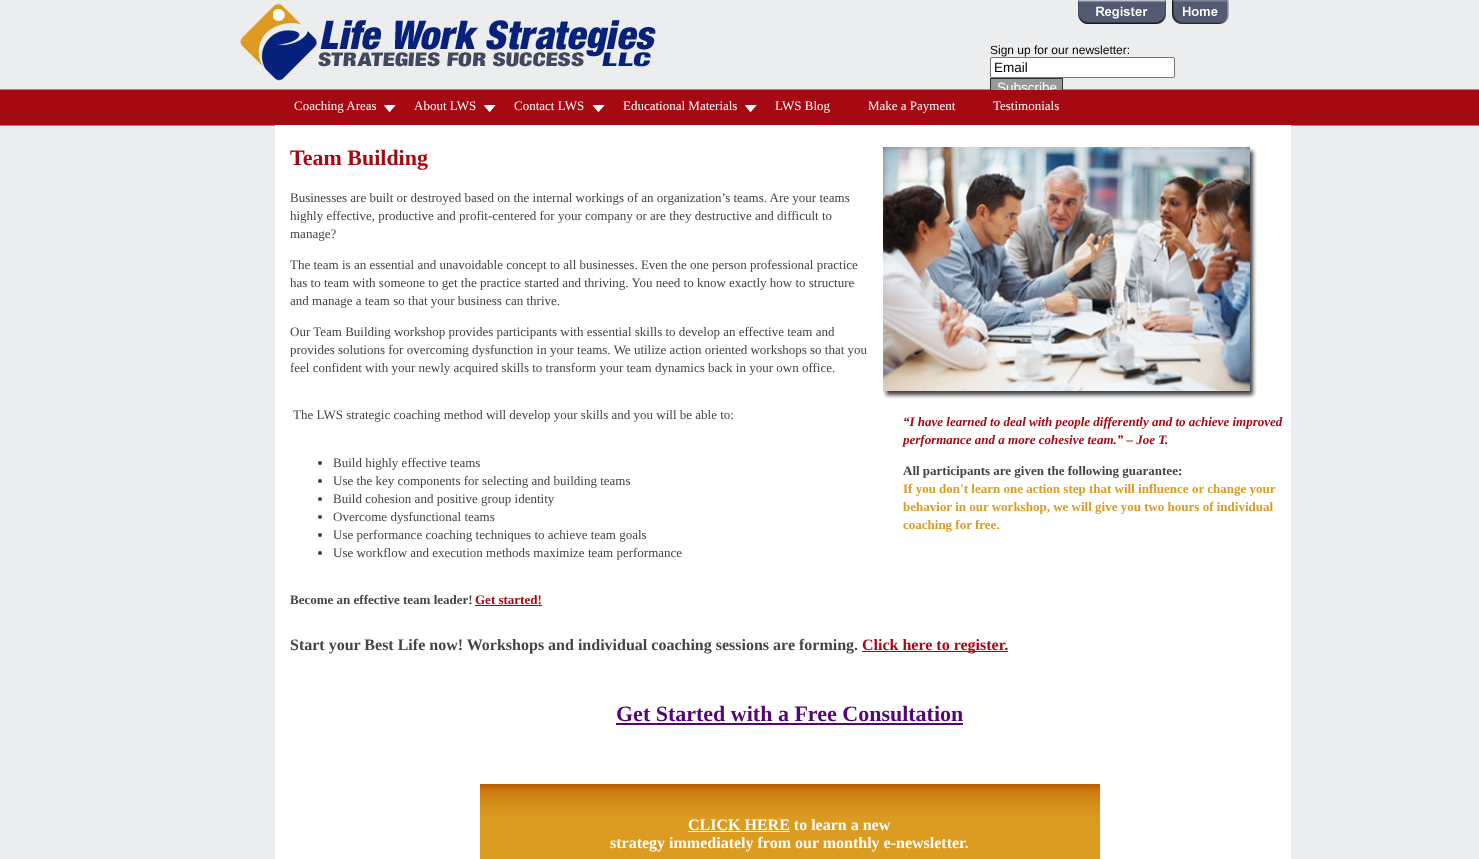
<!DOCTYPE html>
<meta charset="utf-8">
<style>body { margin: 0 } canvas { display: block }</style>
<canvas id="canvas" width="1479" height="859"></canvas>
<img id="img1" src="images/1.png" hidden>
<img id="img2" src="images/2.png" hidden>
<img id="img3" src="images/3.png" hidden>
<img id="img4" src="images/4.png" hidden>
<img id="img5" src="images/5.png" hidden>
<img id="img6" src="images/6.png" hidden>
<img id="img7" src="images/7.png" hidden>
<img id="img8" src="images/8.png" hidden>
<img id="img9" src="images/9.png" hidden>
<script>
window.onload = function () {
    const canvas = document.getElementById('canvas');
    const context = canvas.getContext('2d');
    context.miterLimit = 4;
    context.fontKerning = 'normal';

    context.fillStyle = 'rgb(236, 237, 238)';
    context.fillRect(0, 0, 1479, 859);
    context.drawImage(document.getElementById('img1'), 0, 89, 1479, 38);
    context.drawImage(document.getElementById('img2'), 240, 0, 416, 83);
    context.drawImage(document.getElementById('img3'), 1078, 0, 88, 24);
    context.drawImage(document.getElementById('img4'), 1172, 0, 57, 24);
    context.fillStyle = 'rgb(255, 255, 255)';
    context.beginPath();
    context.roundRect(990.5, 57.5, 184, 20, 1.5);
    context.fill();
    context.strokeStyle = 'rgb(118, 118, 118)';
    context.stroke();
    context.fillStyle = 'rgb(153, 153, 153)';
    context.fillRect(991, 79, 71, 11);
    context.fillStyle = 'rgb(164, 9, 19)';
    context.fillRect(240, 95, 1200, 1);
    context.strokeStyle = 'rgb(51, 51, 51)';
    context.strokeRect(990.5, 78.5, 72, 18);
    context.drawImage(document.getElementById('img5'), 384, 105, 12, 7);
    context.drawImage(document.getElementById('img6'), 484, 105, 12, 7);
    context.drawImage(document.getElementById('img7'), 592, 105, 13, 7);
    context.drawImage(document.getElementById('img6'), 745, 105, 12, 7);
    context.fillStyle = 'rgb(255, 255, 255)';
    context.fillRect(275, 125, 1016, 734);
    context.fillStyle = 'rgb(68, 68, 68)';
    context.beginPath();
    context.arc(320, 463, 2, 0, 2 * Math.PI);
    context.fill();
    context.beginPath();
    context.arc(320, 481, 2, 0, 2 * Math.PI);
    context.fill();
    context.beginPath();
    context.arc(320, 499, 2, 0, 2 * Math.PI);
    context.fill();
    context.beginPath();
    context.arc(320, 517, 2, 0, 2 * Math.PI);
    context.fill();
    context.beginPath();
    context.arc(320, 535, 2, 0, 2 * Math.PI);
    context.fill();
    context.beginPath();
    context.arc(320, 553, 2, 0, 2 * Math.PI);
    context.fill();
    context.drawImage(document.getElementById('img8'), 883, 147, 374, 252);
    context.fillStyle = 'rgb(164, 9, 19)';
    context.fillRect(475, 605, 67, 1);
    context.fillRect(862, 651, 146, 1);
    context.fillStyle = 'rgb(83, 6, 118)';
    context.fillRect(616, 723, 347, 2);
    context.drawImage(document.getElementById('img9'), 480, 784, 620, 75);
    context.fillStyle = 'rgb(255, 255, 255)';
    context.fillRect(688, 831, 102, 1);
    context.font = '12px Liberation Sans';
    context.fillStyle = 'rgb(0, 0, 0)';
    context.fillText('Sign up for our newsletter:', 990, 54);
    context.font = '13.5px Liberation Sans';
    context.fillText('Email', 994, 72);
    context.fillStyle = 'rgb(255, 255, 255)';
    context.fillText('Subscribe', 997, 92);
    context.font = '13px Liberation Serif';
    context.fillText('Coaching Areas', 294, 110);
    context.fillText('About LWS', 414, 110);
    context.fillText('Contact LWS', 514, 110);
    context.fillText('Educational Materials', 623, 110);
    context.fillText('LWS Blog', 775, 110);
    context.fillText('Make a Payment', 868, 110);
    context.fillStyle = 'rgb(164, 9, 19)';
    context.fillRect(990, 90, 73, 7);
    context.fillStyle = 'rgb(255, 255, 255)';
    context.fillText('Testimonials', 993, 110);
    context.font = 'bold 22px Liberation Serif';
    context.fillStyle = 'rgb(164, 9, 19)';
    context.fillText('Team Building', 290, 165);
    context.font = '13px Liberation Serif';
    context.fillStyle = 'rgb(68, 68, 68)';
    context.fillText('Businesses are built or destroyed based on the internal workings of an organization’s teams. Are your teams', 290, 202);
    context.fillText('highly effective, productive and profit-centered for your company or are they destructive and difficult to', 290, 220);
    context.fillText('manage?', 290, 238);
    context.fillText('The team is an essential and unavoidable concept to all businesses. Even the one person professional practice', 290, 269);
    context.fillText('has to team with someone to get the practice started and thriving. You need to know exactly how to structure', 290, 287);
    context.fillText('and manage a team so that your business can thrive.', 290, 305);
    context.fillText('Our Team Building workshop provides participants with essential skills to develop an effective team and', 290, 336);
    context.fillText('provides solutions for overcoming dysfunction in your teams. We utilize action oriented workshops so that you', 290, 354);
    context.fillText('feel confident with your newly acquired skills to transform your team dynamics back in your own office.', 290, 372);
    context.fillText('The LWS strategic coaching method will develop your skills and you will be able to:', 293, 419);
    context.fillText('Build highly effective teams', 333, 467);
    context.fillText('Use the key components for selecting and building teams', 333, 485);
    context.fillText('Build cohesion and positive group identity', 333, 503);
    context.fillText('Overcome dysfunctional teams', 333, 521);
    context.fillText('Use performance coaching techniques to achieve team goals', 333, 539);
    context.fillText('Use workflow and execution methods maximize team performance', 333, 557);
    context.font = 'italic bold 13px Liberation Serif';
    context.fillStyle = 'rgb(164, 9, 19)';
    context.fillText('“I have learned to deal with people differently and to achieve improved', 903, 426);
    context.fillText('performance and a more cohesive team.” – Joe T.', 903, 444);
    context.font = 'bold 13px Liberation Serif';
    context.fillStyle = 'rgb(68, 68, 68)';
    context.fillText('All participants are given the following guarantee:', 903, 475);
    context.fillStyle = 'rgb(219, 155, 32)';
    context.fillText('If you don\'t learn one action step that will influence or change your', 903, 493);
    context.fillText('behavior in our workshop, we will give you two hours of individual', 903, 511);
    context.fillText('coaching for free.', 903, 529);
    context.fillStyle = 'rgb(68, 68, 68)';
    context.fillText('Become an effective team leader!', 290, 604);
    context.fillStyle = 'rgb(164, 9, 19)';
    context.fillText('Get started!', 475, 604);
    context.font = 'bold 16px Liberation Serif';
    context.fillStyle = 'rgb(68, 68, 68)';
    context.fillText('Start your Best Life now! Workshops and individual coaching sessions are forming.', 290, 650);
    context.fillStyle = 'rgb(164, 9, 19)';
    context.fillText('Click here to register.', 862, 650);
    context.font = 'bold 22px Liberation Serif';
    context.fillStyle = 'rgb(83, 6, 118)';
    context.fillText('Get Started with a Free Consultation', 616, 721);
    context.font = 'bold 16px Liberation Serif';
    context.fillStyle = 'rgb(255, 255, 255)';
    context.fillText('CLICK HERE to learn a new', 688, 830);
    context.fillText('strategy immediately from our monthly e-newsletter.', 610, 848);
};
</script>
